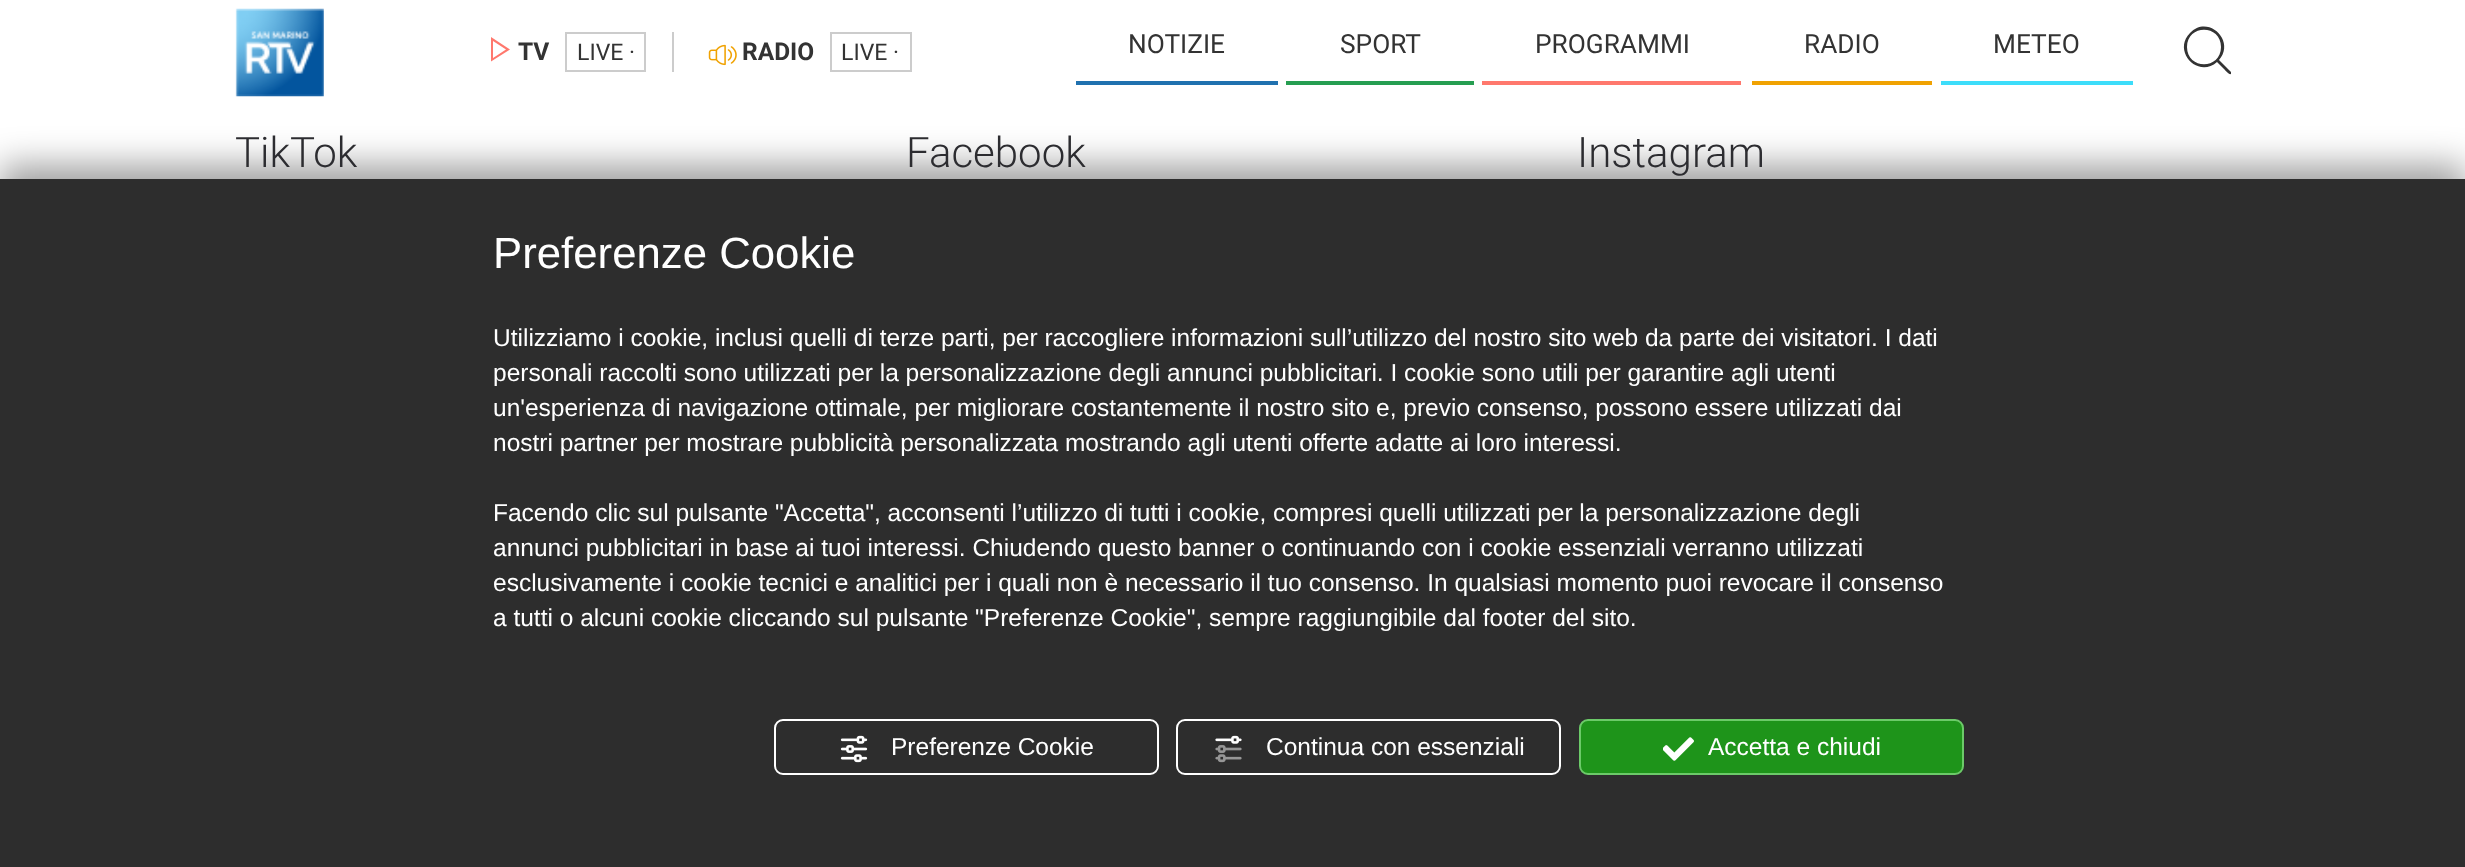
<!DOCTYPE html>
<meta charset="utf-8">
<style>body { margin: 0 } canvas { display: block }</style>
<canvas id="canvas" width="2465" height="867"></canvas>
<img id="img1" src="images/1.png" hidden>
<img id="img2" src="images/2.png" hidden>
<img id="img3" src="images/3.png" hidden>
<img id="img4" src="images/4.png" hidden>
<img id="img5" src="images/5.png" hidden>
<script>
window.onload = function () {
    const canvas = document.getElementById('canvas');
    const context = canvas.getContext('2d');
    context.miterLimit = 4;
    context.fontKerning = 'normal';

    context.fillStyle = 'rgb(255, 255, 255)';
    context.fillRect(0, 0, 2465, 867);
    context.drawImage(document.getElementById('img1'), 235, 8, 89, 89);
    context.fillStyle = 'rgb(204, 204, 204)';
    context.fillRect(672, 32, 2, 40);
    context.fillStyle = 'rgb(255, 120, 109)';
    context.beginPath();
    context.moveTo(493, 41);
    context.lineTo(506, 49.5);
    context.lineTo(493, 58);
    context.closePath();
    context.moveTo(491, 37);
    context.lineTo(491, 61.5);
    context.lineTo(510, 49.5);
    context.closePath();
    context.fill();
    context.strokeStyle = 'rgb(204, 204, 204)';
    context.lineWidth = 2;
    context.strokeRect(566, 33, 79, 38);
    context.drawImage(document.getElementById('img2'), 708, 44, 29, 22);
    context.strokeRect(831, 33, 80, 38);
    context.fillStyle = 'rgb(32, 113, 175)';
    context.fillRect(1076, 81, 202, 4);
    context.fillStyle = 'rgb(38, 158, 81)';
    context.fillRect(1286, 81, 188, 4);
    context.fillStyle = 'rgb(255, 120, 109)';
    context.fillRect(1482, 81, 259, 4);
    context.fillStyle = 'rgb(240, 162, 2)';
    context.fillRect(1752, 81, 180, 4);
    context.fillStyle = 'rgb(61, 221, 250)';
    context.fillRect(1941, 81, 192, 4);
    context.fillStyle = 'rgb(51, 51, 51)';
    context.beginPath();
    context.moveTo(2231, 72);
    context.lineTo(2219, 60);
    context.bezierCurveTo(2236, 41, 2208, 14, 2190, 33);
    context.bezierCurveTo(2172, 51, 2198, 79, 2217, 62);
    context.lineTo(2225, 70);
    context.bezierCurveTo(2225, 70, 2229, 75, 2231, 74);
    context.bezierCurveTo(2231, 73, 2231, 72, 2231, 72);
    context.closePath();
    context.moveTo(2187, 47);
    context.bezierCurveTo(2187, 24, 2221, 24, 2221, 47);
    context.bezierCurveTo(2221, 70, 2187, 70, 2187, 47);
    context.closePath();
    context.fill();
    context.fillStyle = 'rgba(0, 0, 0, 0.38)';
    context.filter = 'blur(17.5px)';
    context.beginPath();
    context.rect(0, 165, 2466, 689);
    context.fill();
    context.filter = 'none';
    context.fillStyle = 'rgb(45, 45, 45)';
    context.fillRect(0, 179, 2465, 688);
    context.beginPath();
    context.roundRect(775, 720, 383, 54, 8);
    context.strokeStyle = 'rgb(255, 255, 255)';
    context.stroke();
    context.drawImage(document.getElementById('img3'), 840, 735, 28, 28);
    context.beginPath();
    context.roundRect(1177, 720, 383, 54, 8);
    context.stroke();
    context.drawImage(document.getElementById('img4'), 1215, 735, 27, 28);
    context.fillStyle = 'rgb(30, 148, 26)';
    context.beginPath();
    context.roundRect(1580, 720, 383, 54, 8);
    context.fill();
    context.strokeStyle = 'rgb(108, 202, 105)';
    context.stroke();
    context.drawImage(document.getElementById('img5'), 1663, 737, 31, 24);
    context.font = 'bold 24.5px Roboto';
    context.fillStyle = 'rgb(51, 51, 51)';
    context.fillText('TV', 518, 60);
    context.font = '23px Roboto';
    context.fillText('LIVE ·', 577, 60);
    context.font = 'bold 24.5px Roboto';
    context.fillText('RADIO', 742, 60);
    context.font = '23px Roboto';
    context.fillText('LIVE ·', 841, 60);
    context.font = '26.25px Roboto';
    context.fillText('NOTIZIE', 1128, 53);
    context.fillText('SPORT', 1340, 53);
    context.fillText('PROGRAMMI', 1535, 53);
    context.fillText('RADIO', 1804, 53);
    context.fillText('METEO', 1993, 53);
    context.font = '300 42px Roboto';
    context.fillStyle = 'rgb(44, 44, 48)';
    context.fillText('TikTok', 235, 167);
    context.fillText('Facebook', 906, 167);
    context.fillText('Instagram', 1577, 167);
    context.font = '43.75px Liberation Sans';
    context.fillStyle = 'rgb(255, 255, 255)';
    context.fillText('Preferenze Cookie', 493, 268);
    context.font = '24.5px Liberation Sans';
    context.fillText('Utilizziamo i cookie, inclusi quelli di terze parti, per raccogliere informazioni sull’utilizzo del nostro sito web da parte dei visitatori. I dati', 493, 346);
    context.fillText('personali raccolti sono utilizzati per la personalizzazione degli annunci pubblicitari. I cookie sono utili per garantire agli utenti', 493, 381);
    context.fillText('un\'esperienza di navigazione ottimale, per migliorare costantemente il nostro sito e, previo consenso, possono essere utilizzati dai', 493, 416);
    context.fillText('nostri partner per mostrare pubblicità personalizzata mostrando agli utenti offerte adatte ai loro interessi.', 493, 451);
    context.fillText('Facendo clic sul pulsante "Accetta", acconsenti l’utilizzo di tutti i cookie, compresi quelli utilizzati per la personalizzazione degli', 493, 521);
    context.fillText('annunci pubblicitari in base ai tuoi interessi. Chiudendo questo banner o continuando con i cookie essenziali verranno utilizzati', 493, 556);
    context.fillText('esclusivamente i cookie tecnici e analitici per i quali non è necessario il tuo consenso. In qualsiasi momento puoi revocare il consenso', 493, 591);
    context.fillText('a tutti o alcuni cookie cliccando sul pulsante "Preferenze Cookie", sempre raggiungibile dal footer del sito.', 493, 626);
    context.fillText('Preferenze Cookie', 891, 755);
    context.fillText('Continua con essenziali', 1266, 755);
    context.fillText('Accetta e chiudi', 1708, 755);
};
</script>
